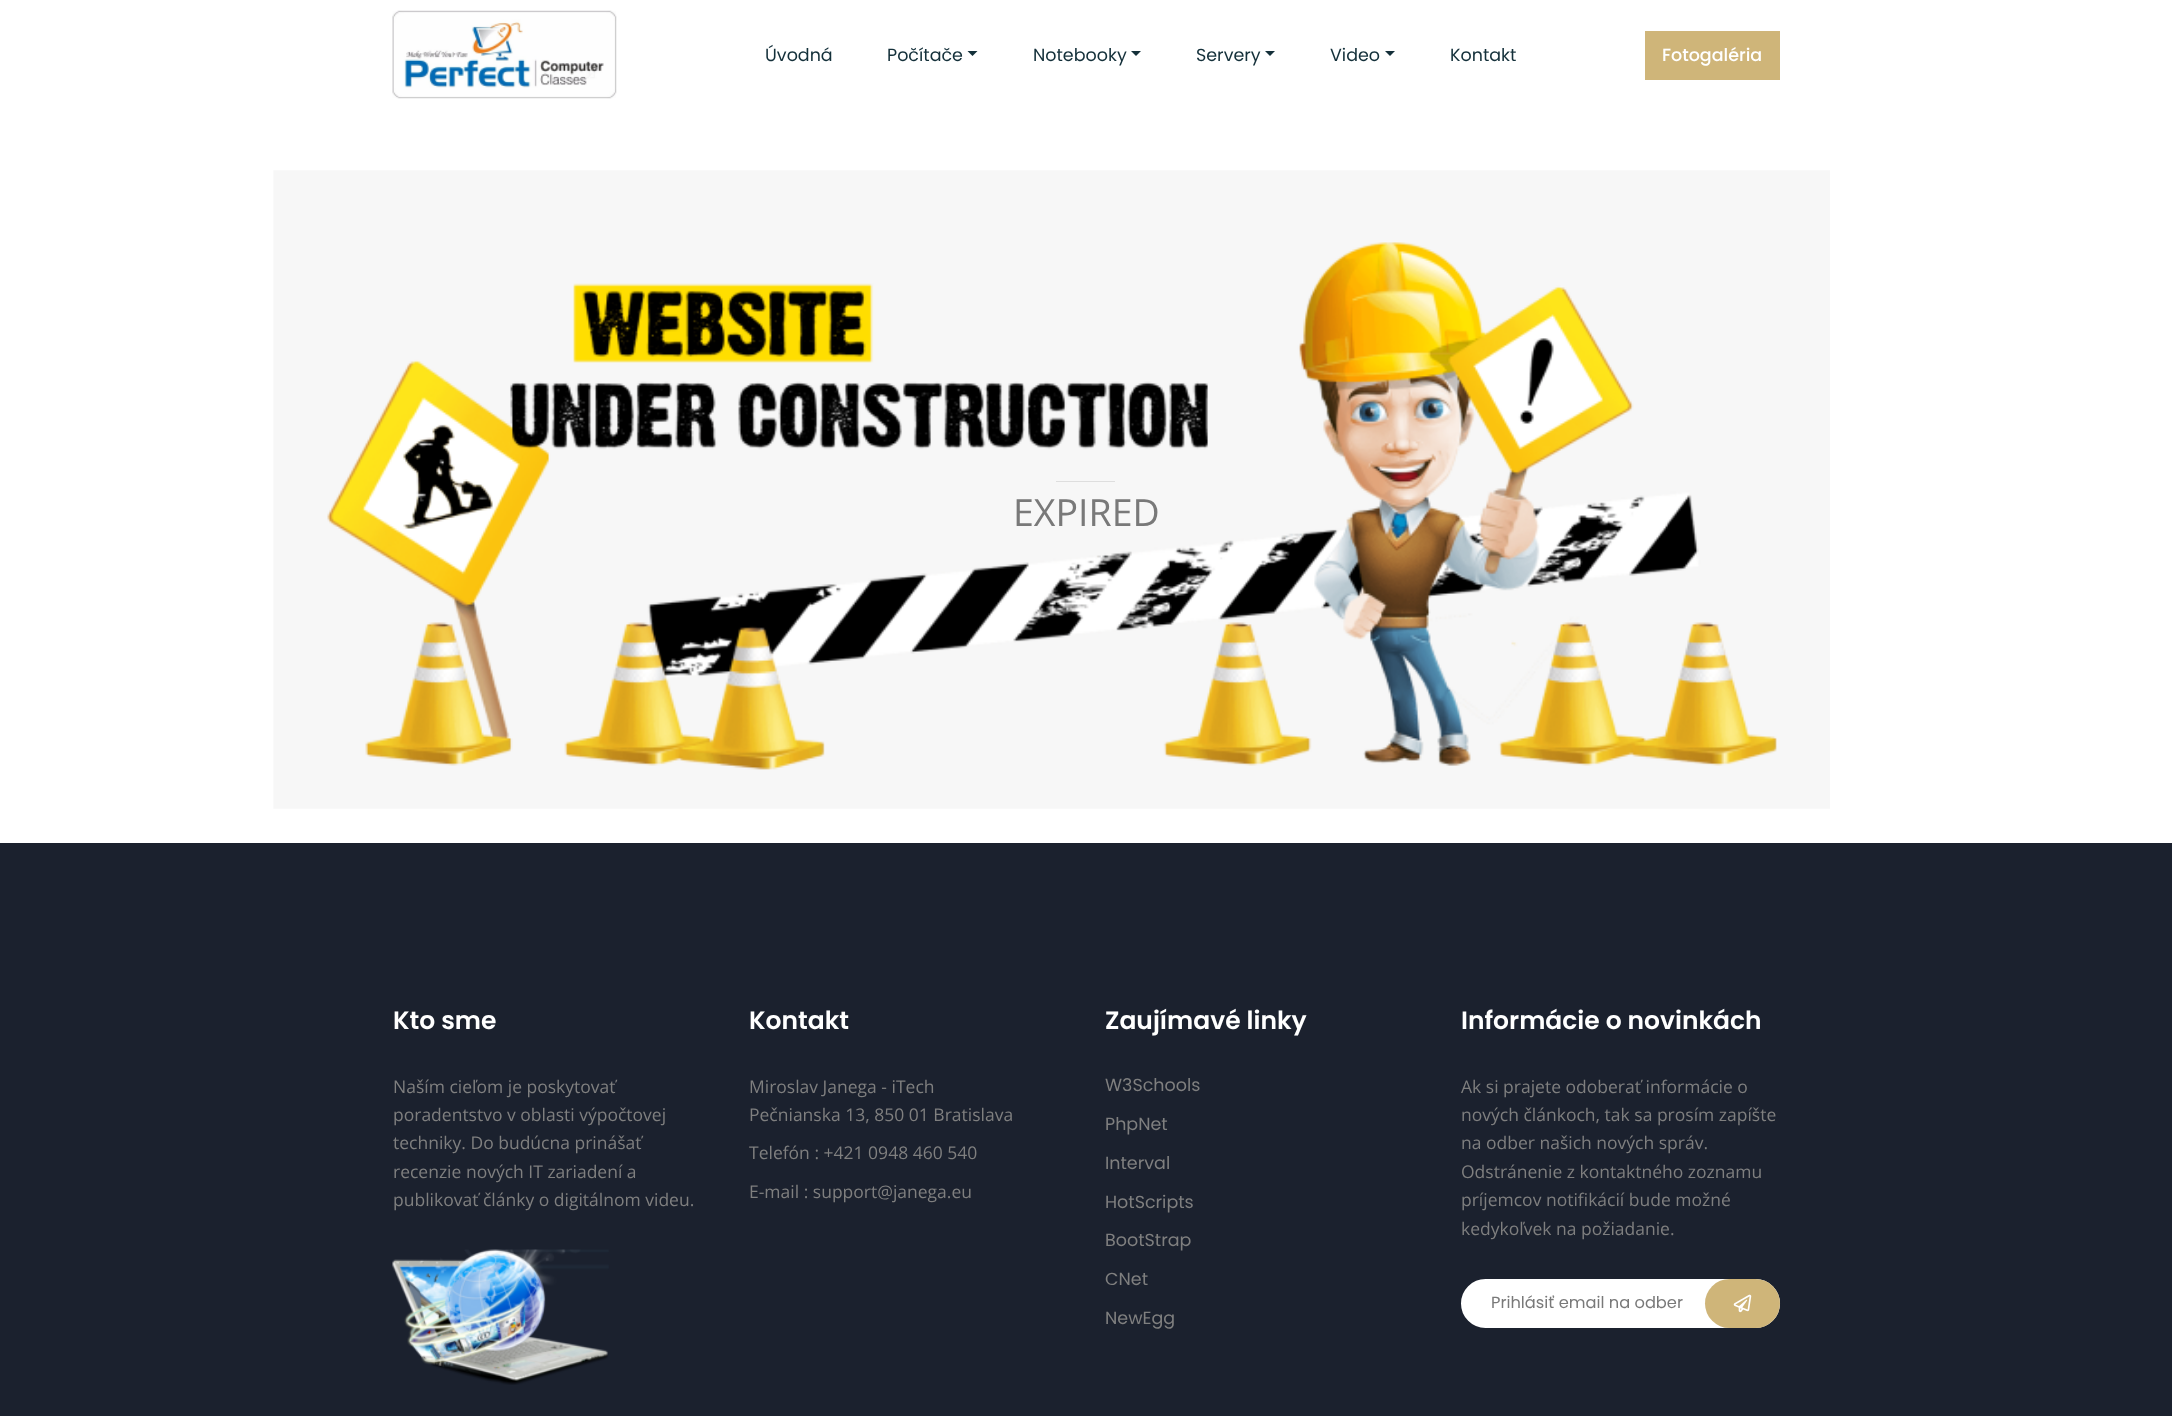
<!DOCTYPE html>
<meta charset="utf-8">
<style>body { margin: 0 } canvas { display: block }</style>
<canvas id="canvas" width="2172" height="1416"></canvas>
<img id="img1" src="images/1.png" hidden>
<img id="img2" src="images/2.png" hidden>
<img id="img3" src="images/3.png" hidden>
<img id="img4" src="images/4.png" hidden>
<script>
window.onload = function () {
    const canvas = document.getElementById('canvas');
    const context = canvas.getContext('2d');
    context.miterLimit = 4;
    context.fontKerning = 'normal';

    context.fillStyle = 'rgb(255, 255, 255)';
    context.fillRect(0, 0, 2172, 1416);
    context.drawImage(document.getElementById('img1'), 392, 10, 225, 89);
    context.fillStyle = 'rgb(20, 48, 58)';
    context.beginPath();
    context.moveTo(967.5, 51);
    context.lineTo(977.5, 51);
    context.lineTo(972.5, 56);
    context.closePath();
    context.fill();
    context.beginPath();
    context.moveTo(1131, 51);
    context.lineTo(1141, 51);
    context.lineTo(1136, 56);
    context.closePath();
    context.fill();
    context.beginPath();
    context.moveTo(1265, 51);
    context.lineTo(1275, 51);
    context.lineTo(1270, 56);
    context.closePath();
    context.fill();
    context.beginPath();
    context.moveTo(1385, 51);
    context.lineTo(1395, 51);
    context.lineTo(1390, 56);
    context.closePath();
    context.fill();
    context.fillStyle = 'rgb(207, 181, 121)';
    context.fillRect(1645, 31, 135, 49);
    context.drawImage(document.getElementById('img2'), 273, 170, 1557, 639);
    context.fillStyle = 'rgb(222, 222, 222)';
    context.fillRect(1056, 481, 59, 1);
    context.fillStyle = 'rgb(27, 33, 46)';
    context.fillRect(0, 843, 2172, 573);
    context.drawImage(document.getElementById('img3'), 392, 1249, 217, 136);
    context.fillStyle = 'rgb(255, 255, 255)';
    context.beginPath();
    context.roundRect(1462.5, 1280.5, 316, 46, 23);
    context.fill();
    context.strokeStyle = 'rgb(255, 255, 255)';
    context.lineWidth = 3;
    context.stroke();
    context.fillStyle = 'rgb(207, 181, 121)';
    context.beginPath();
    context.roundRect(1705, 1279, 75, 49, 24.5);
    context.fill();
    context.drawImage(document.getElementById('img4'), 1733, 1294, 19, 19);
    context.font = '17.5px Poppins';
    context.fillStyle = 'rgb(20, 48, 58)';
    context.fillText('Úvodná', 765, 61);
    context.fillText('Počítače', 887, 61);
    context.fillText('Notebooky', 1033, 61);
    context.fillText('Servery', 1196, 61);
    context.fillText('Video', 1330, 61);
    context.fillText('Kontakt', 1450, 61);
    context.font = '500 17.5px Poppins';
    context.fillStyle = 'rgb(255, 255, 255)';
    context.fillText('Fotogaléria', 1662, 61);
    context.font = '37.5px Open Sans';
    context.fillStyle = 'rgb(121, 121, 121)';
    context.fillText('EXPIRED', 1013, 526);
    context.font = '600 25px Poppins';
    context.fillStyle = 'rgb(255, 255, 255)';
    context.fillText('Kto sme', 393, 1029);
    context.font = '17.5px Open Sans';
    context.fillStyle = 'rgb(127, 127, 127)';
    context.fillText('Naším cieľom je poskytovať', 393, 1093);
    context.fillText('poradentstvo v oblasti výpočtovej', 393, 1121);
    context.fillText('techniky. Do budúcna prinášať', 393, 1149);
    context.fillText('recenzie nových IT zariadení a', 393, 1178);
    context.fillText('publikovať články o digitálnom videu.', 393, 1206);
    context.font = '600 25px Poppins';
    context.fillStyle = 'rgb(255, 255, 255)';
    context.fillText('Kontakt', 749, 1029);
    context.font = '17.5px Open Sans';
    context.fillStyle = 'rgb(127, 127, 127)';
    context.fillText('Miroslav Janega - iTech', 749, 1093);
    context.fillText('Pečnianska 13, 850 01 Bratislava', 749, 1121);
    context.fillText('Telefón : +421 0948 460 540', 749, 1159);
    context.fillText('E-mail : support@janega.eu', 749, 1198);
    context.font = '600 25px Poppins';
    context.fillStyle = 'rgb(255, 255, 255)';
    context.fillText('Zaujímavé linky', 1105, 1029);
    context.font = '17.5px Poppins';
    context.fillStyle = 'rgb(127, 127, 127)';
    context.fillText('W3Schools', 1105, 1091);
    context.fillText('PhpNet', 1105, 1130);
    context.fillText('Interval', 1105, 1169);
    context.fillText('HotScripts', 1105, 1208);
    context.fillText('BootStrap', 1105, 1246);
    context.fillText('CNet', 1105, 1285);
    context.fillText('NewEgg', 1105, 1324);
    context.font = '600 25px Poppins';
    context.fillStyle = 'rgb(255, 255, 255)';
    context.fillText('Informácie o novinkách', 1461, 1029);
    context.font = '17.5px Open Sans';
    context.fillStyle = 'rgb(127, 127, 127)';
    context.fillText('Ak si prajete odoberať informácie o', 1461, 1093);
    context.fillText('nových článkoch, tak sa prosím zapíšte', 1461, 1121);
    context.fillText('na odber našich nových správ.', 1461, 1149);
    context.fillText('Odstránenie z kontaktného zoznamu', 1461, 1178);
    context.fillText('príjemcov notifikácií bude možné', 1461, 1206);
    context.fillText('kedykoľvek na požiadanie.', 1461, 1235);
    context.font = '16.25px Poppins';
    context.fillStyle = 'rgb(121, 121, 121)';
    context.fillText('Prihlásiť email na odber', 1491, 1308);
};
</script>
